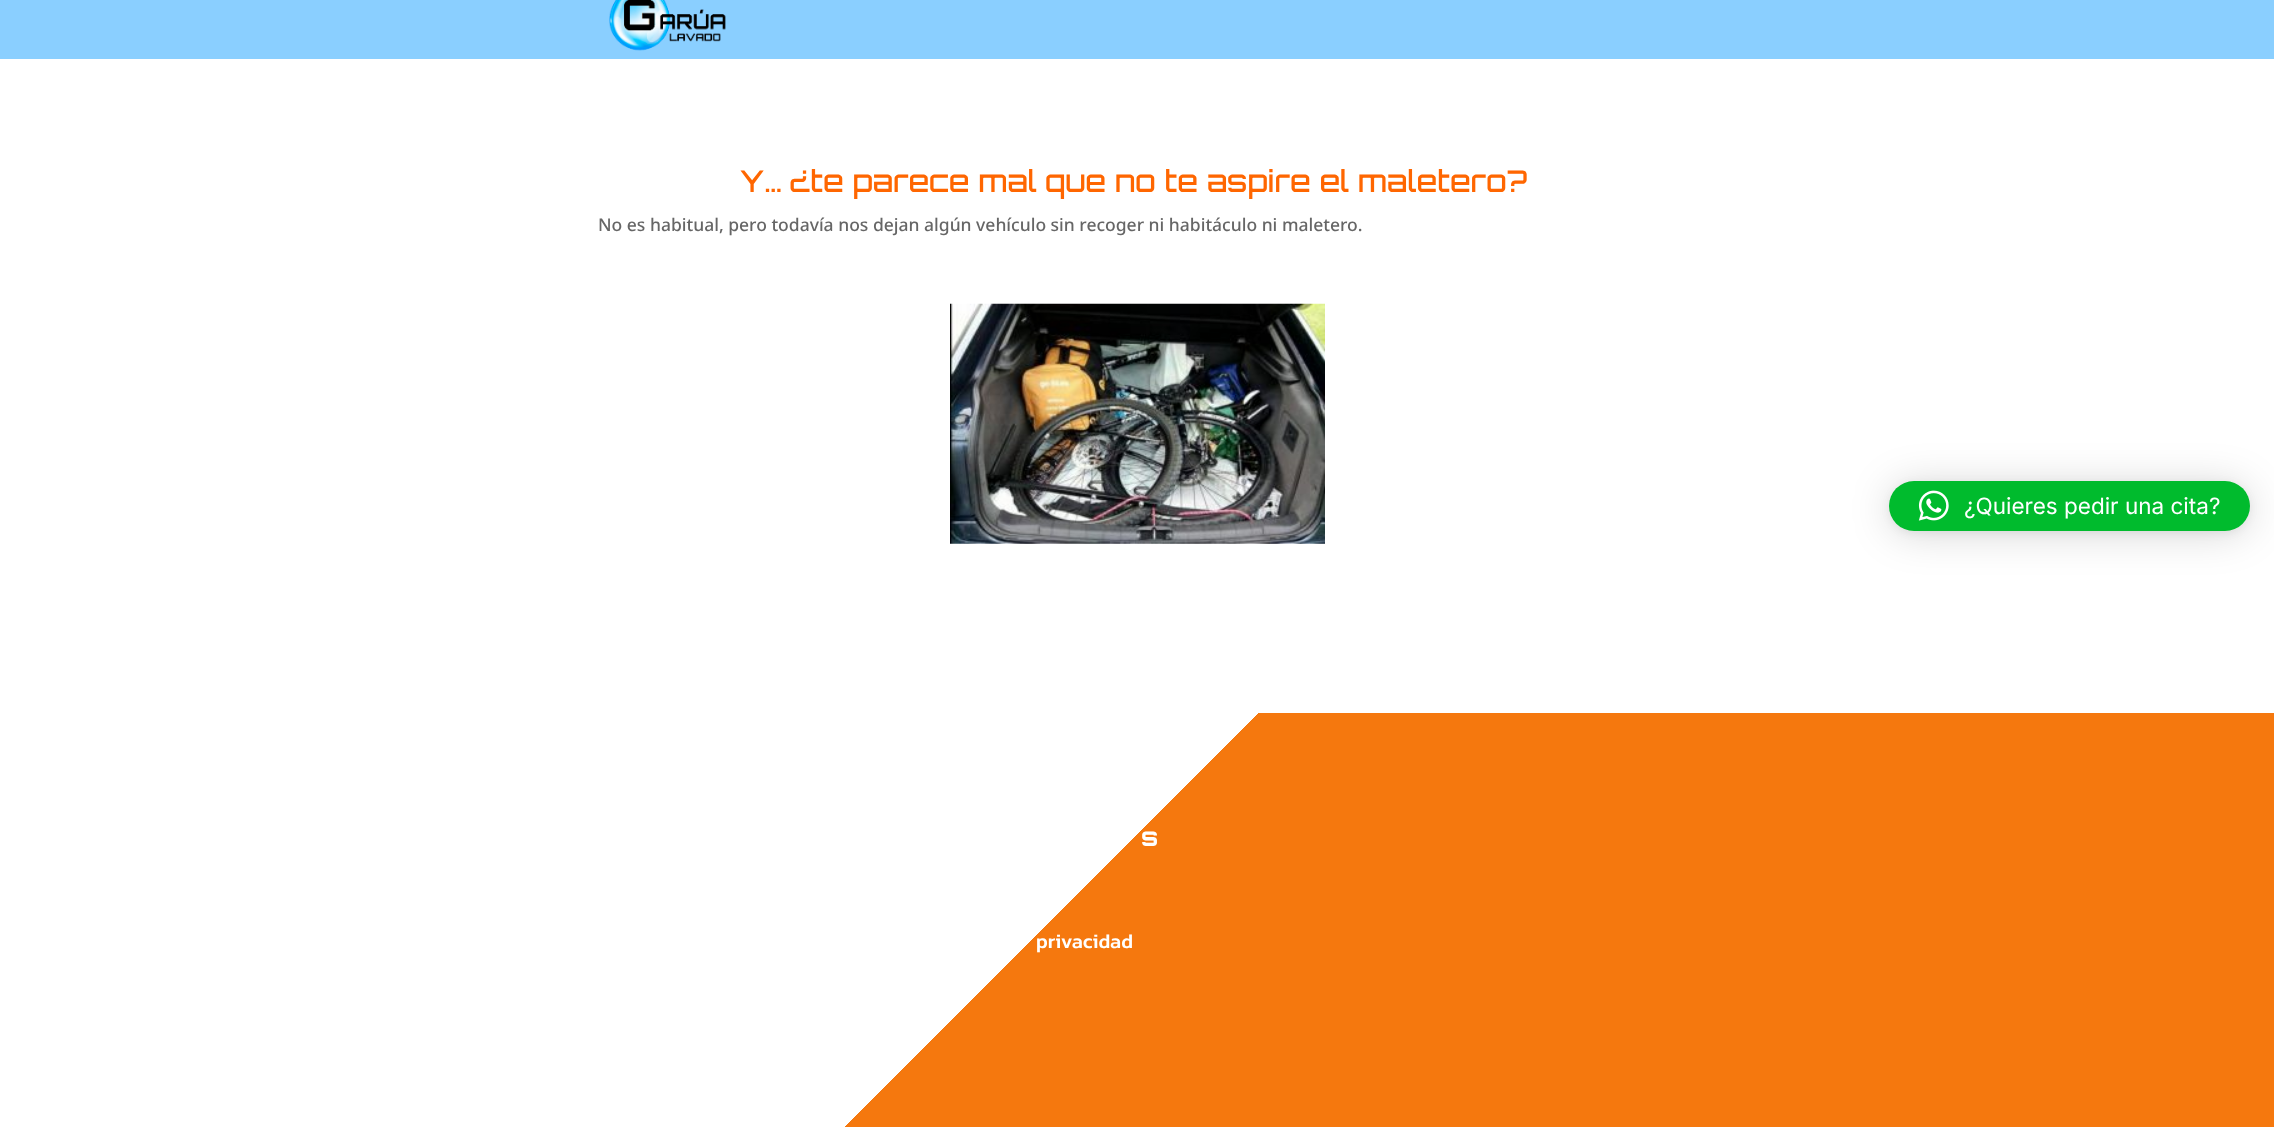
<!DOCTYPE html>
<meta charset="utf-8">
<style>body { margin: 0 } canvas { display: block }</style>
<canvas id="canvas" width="2274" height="1127"></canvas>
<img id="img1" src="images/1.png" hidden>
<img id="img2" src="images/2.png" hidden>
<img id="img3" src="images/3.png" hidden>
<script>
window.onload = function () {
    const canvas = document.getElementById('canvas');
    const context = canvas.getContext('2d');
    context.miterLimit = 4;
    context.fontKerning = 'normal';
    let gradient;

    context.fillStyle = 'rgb(255, 255, 255)';
    context.fillRect(0, 0, 2274, 1127);
    context.fillStyle = 'rgb(138, 207, 255)';
    context.fillRect(0, 0, 2274, 59);
    context.drawImage(document.getElementById('img1'), 609, 0, 117, 51);
    context.drawImage(document.getElementById('img2'), 950, 303, 375, 241);
    gradient = context.createLinearGradient(806, 361, 1924, 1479);
    gradient.addColorStop(0.36, 'rgb(255, 255, 255)');
    gradient.addColorStop(0.36, 'rgb(245, 120, 14)');
    context.fillStyle = gradient;
    context.fillRect(845, 713, 1429, 414);
    context.fillStyle = 'rgba(0, 0, 0, 0.16)';
    context.filter = 'blur(20px)';
    context.beginPath();
    context.roundRect(1889, 484, 361, 50, 25);
    context.fill();
    context.filter = 'none';
    context.fillStyle = 'rgba(0, 0, 0, 0.06)';
    context.filter = 'blur(4px)';
    context.beginPath();
    context.roundRect(1889, 483, 361, 50, 25);
    context.fill();
    context.filter = 'none';
    context.fillStyle = 'rgb(0, 187, 45)';
    context.beginPath();
    context.roundRect(1889, 481, 361, 50, 25);
    context.fill();
    context.drawImage(document.getElementById('img3'), 1918, 490, 31, 31);
    context.font = '500 30px Orbitron';
    context.fillStyle = 'rgb(255, 102, 0)';
    context.fillText('Y… ¿te parece mal que no te aspire el maletero?', 740, 192);
    context.font = '500 17.5px Noto Sans';
    context.fillStyle = 'rgb(102, 102, 102)';
    context.fillText('No es habitual, pero todavía nos dejan algún vehículo sin recoger ni habitáculo ni maletero.', 598, 231);
    context.letterSpacing = '1px';
    context.font = 'bold 25px Orbitron';
    context.fillStyle = 'rgb(255, 255, 255)';
    context.fillText('s', 1141, 846);
    context.letterSpacing = '0px';
    context.font = '500 20px Kanit';
    context.fillText('privacidad', 1036, 948);
    context.font = '22.5px Inter';
    context.fillText('¿Quieres pedir una cita?', 1964, 514);
};
</script>
